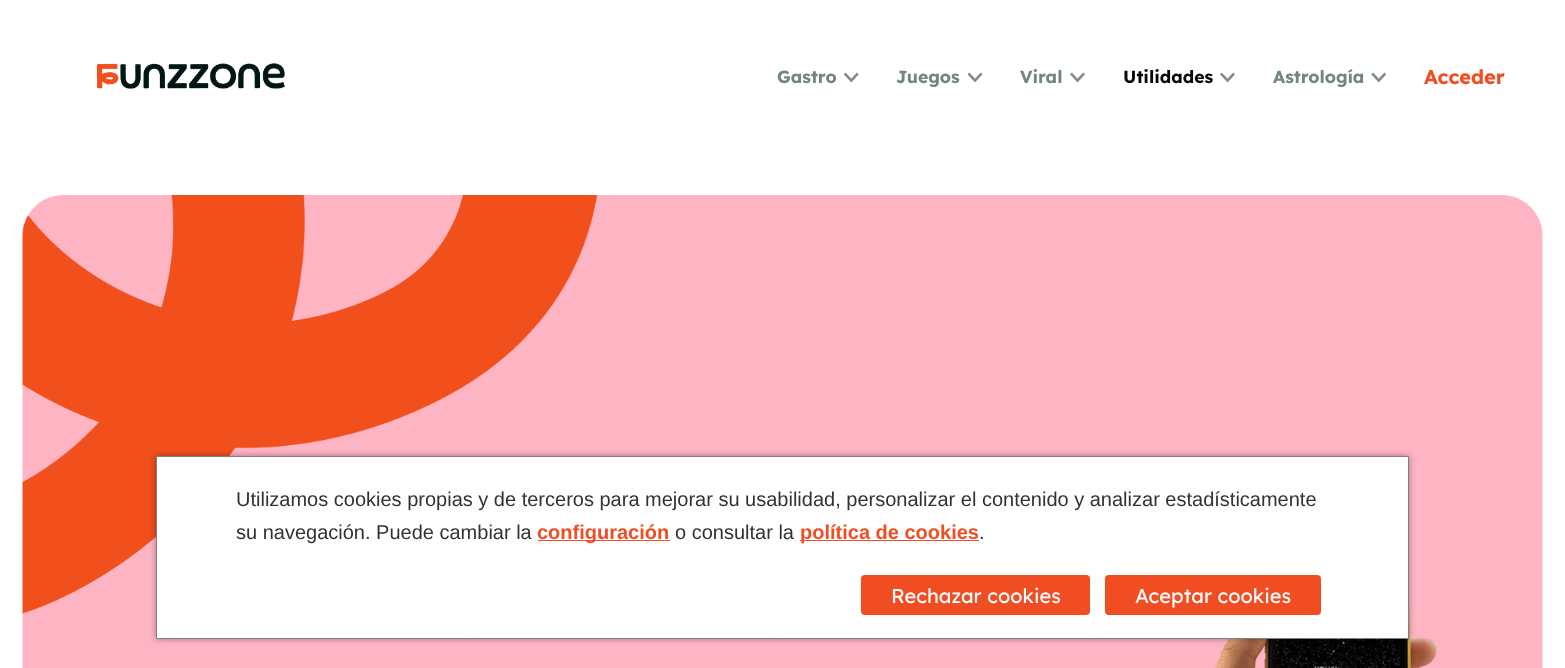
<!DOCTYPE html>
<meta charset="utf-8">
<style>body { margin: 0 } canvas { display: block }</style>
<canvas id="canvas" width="1565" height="668"></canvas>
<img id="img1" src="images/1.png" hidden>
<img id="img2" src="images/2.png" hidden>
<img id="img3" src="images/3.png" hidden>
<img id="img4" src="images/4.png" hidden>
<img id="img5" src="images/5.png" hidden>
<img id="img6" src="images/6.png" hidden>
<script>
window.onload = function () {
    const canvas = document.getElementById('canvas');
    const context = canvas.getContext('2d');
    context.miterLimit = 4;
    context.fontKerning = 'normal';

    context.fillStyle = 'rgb(255, 255, 255)';
    context.fillRect(0, 0, 1565, 668);
    context.drawImage(document.getElementById('img1'), 97, 63, 188, 26);
    context.drawImage(document.getElementById('img2'), 844, 72, 15, 11);
    context.drawImage(document.getElementById('img3'), 968, 72, 15, 11);
    context.drawImage(document.getElementById('img4'), 1070, 72, 15, 11);
    context.drawImage(document.getElementById('img4'), 1220, 72, 15, 11);
    context.drawImage(document.getElementById('img5'), 1371, 72, 15, 11);
    context.drawImage(document.getElementById('img6'), 22, 195, 1521, 473);
    context.fillStyle = 'rgba(0, 0, 0, 0.36)';
    context.filter = 'blur(3px)';
    context.beginPath();
    context.rect(156, 456, 1253, 183);
    context.fill();
    context.filter = 'none';
    context.fillStyle = 'rgb(255, 255, 255)';
    context.beginPath();
    context.rect(156.5, 456.5, 1252, 182);
    context.fill();
    context.strokeStyle = 'rgb(128, 128, 128)';
    context.stroke();
    context.fillStyle = 'rgb(240, 77, 35)';
    context.fillRect(538, 540, 132, 1);
    context.fillRect(800, 540, 179, 1);
    context.beginPath();
    context.roundRect(861, 575, 229, 40, 4);
    context.fill();
    context.beginPath();
    context.roundRect(1105, 575, 216, 40, 4);
    context.fill();
    context.font = 'bold 17.5px Lexend';
    context.fillStyle = 'rgb(113, 133, 132)';
    context.fillText('Gastro', 777, 83);
    context.fillText('Juegos', 896, 83);
    context.fillText('Viral', 1020, 83);
    context.fillStyle = 'rgb(8, 8, 8)';
    context.fillText('Utilidades', 1123, 83);
    context.fillStyle = 'rgb(113, 133, 132)';
    context.fillText('Astrología', 1273, 83);
    context.font = 'bold 20px Lexend';
    context.fillStyle = 'rgb(240, 77, 35)';
    context.fillText('Acceder', 1424, 84);
    context.font = '20px Liberation Sans';
    context.fillStyle = 'rgb(50, 50, 50)';
    context.fillText('Utilizamos cookies propias y de terceros para mejorar su usabilidad, personalizar el contenido y analizar estadísticamente', 236, 506);
    context.fillText('su navegación. Puede cambiar la', 236, 539);
    context.font = 'bold 20px Liberation Sans';
    context.fillStyle = 'rgb(240, 77, 35)';
    context.fillText('configuración', 537, 539);
    context.font = '20px Liberation Sans';
    context.fillStyle = 'rgb(50, 50, 50)';
    context.fillText('o consultar la', 675, 539);
    context.font = 'bold 20px Liberation Sans';
    context.fillStyle = 'rgb(240, 77, 35)';
    context.fillText('política de cookies', 800, 539);
    context.font = '20px Liberation Sans';
    context.fillStyle = 'rgb(50, 50, 50)';
    context.fillText('.', 979, 539);
    context.font = '20px Lexend';
    context.fillStyle = 'rgb(255, 255, 255)';
    context.fillText('Rechazar cookies', 891, 603);
    context.fillText('Aceptar cookies', 1135, 603);
};
</script>
